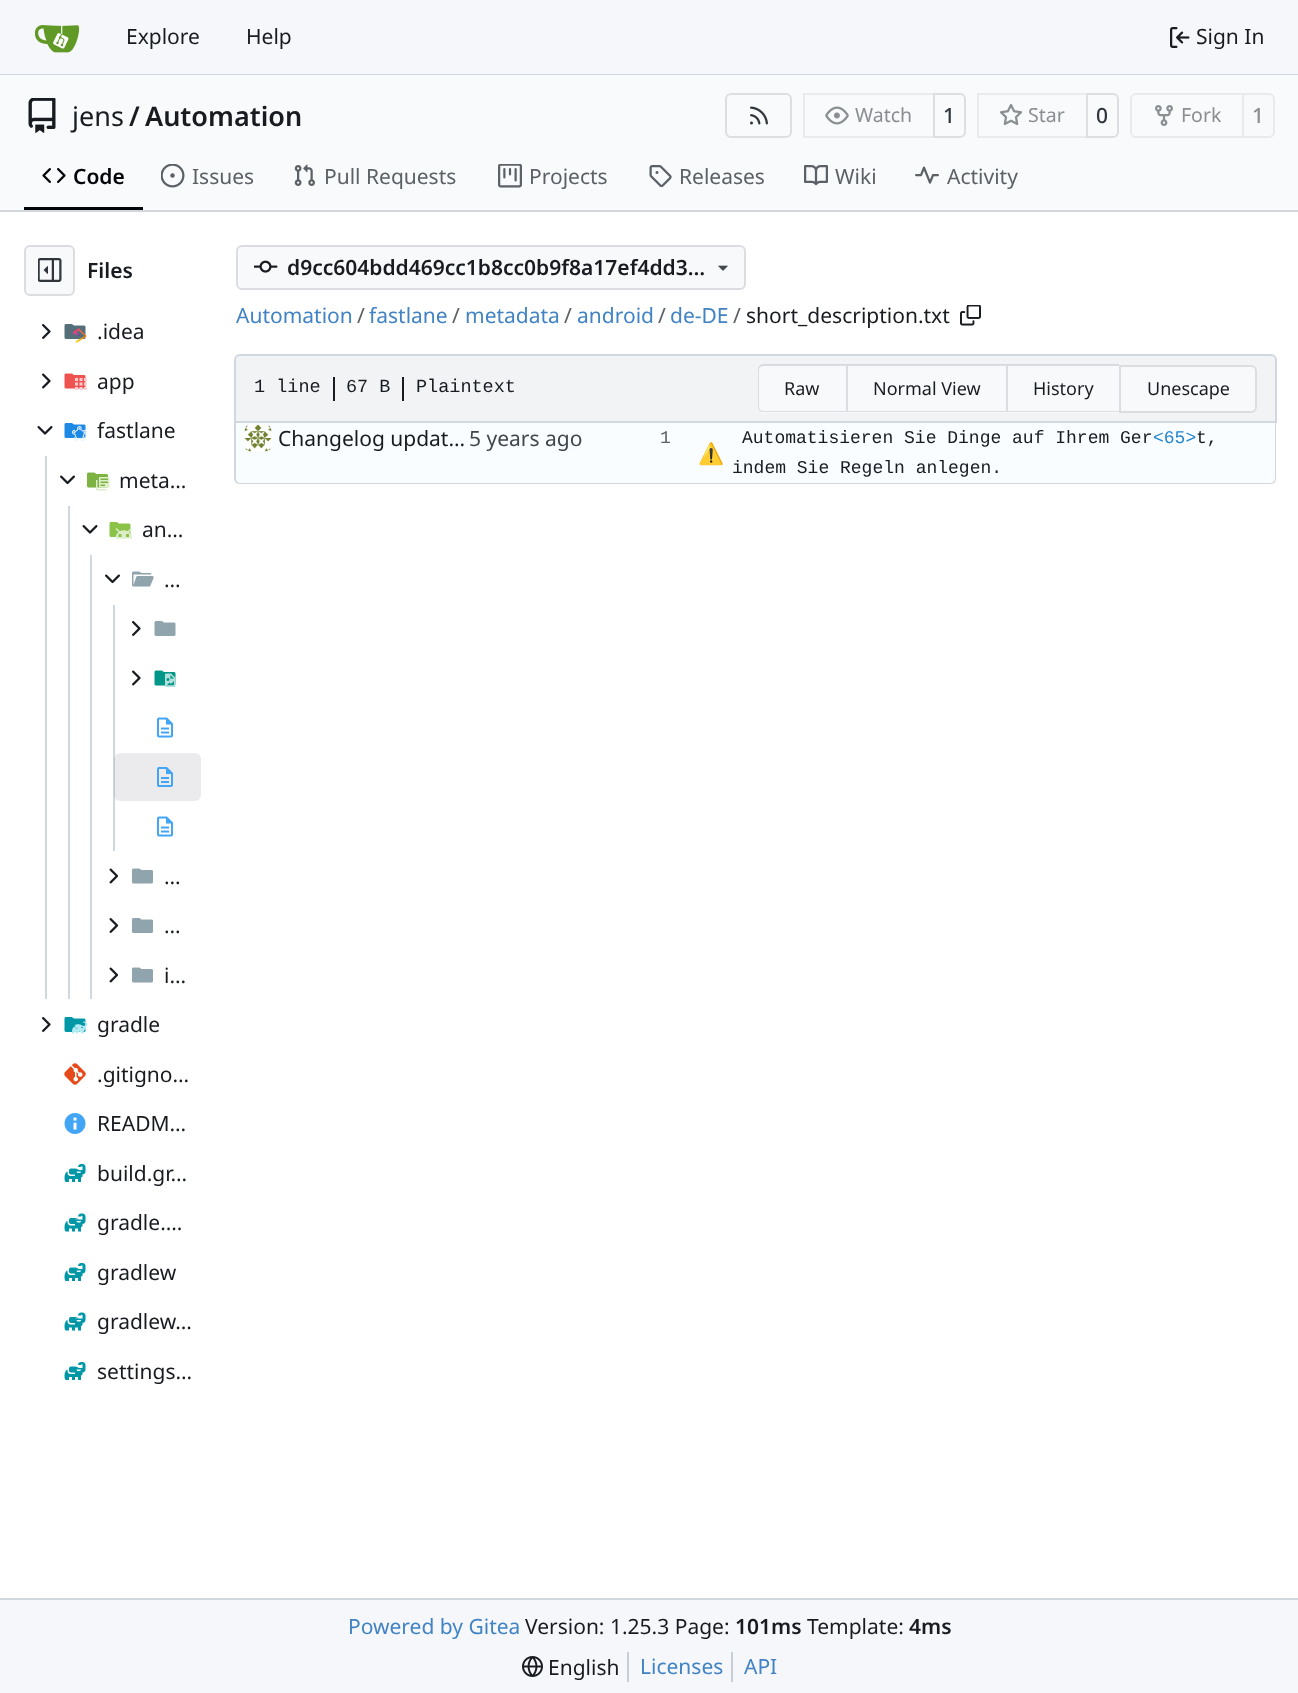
<!DOCTYPE html>
<meta charset="utf-8">
<style>body { margin: 0 } canvas { display: block }</style>
<canvas id="canvas" width="1298" height="1693"></canvas>
<img id="img1" src="images/1.png" hidden>
<img id="img2" src="images/2.png" hidden>
<img id="img3" src="images/3.png" hidden>
<img id="img4" src="images/4.png" hidden>
<img id="img5" src="images/5.png" hidden>
<img id="img6" src="images/6.png" hidden>
<img id="img7" src="images/7.png" hidden>
<img id="img8" src="images/8.png" hidden>
<img id="img9" src="images/9.png" hidden>
<img id="img10" src="images/10.png" hidden>
<img id="img11" src="images/11.png" hidden>
<img id="img12" src="images/12.png" hidden>
<img id="img13" src="images/13.png" hidden>
<img id="img14" src="images/14.png" hidden>
<img id="img15" src="images/15.png" hidden>
<img id="img16" src="images/16.png" hidden>
<img id="img17" src="images/17.png" hidden>
<img id="img18" src="images/18.png" hidden>
<img id="img19" src="images/19.png" hidden>
<img id="img20" src="images/20.png" hidden>
<img id="img21" src="images/21.png" hidden>
<img id="img22" src="images/22.png" hidden>
<img id="img23" src="images/23.png" hidden>
<img id="img24" src="images/24.png" hidden>
<img id="img25" src="images/25.png" hidden>
<img id="img26" src="images/26.png" hidden>
<img id="img27" src="images/27.png" hidden>
<img id="img28" src="images/28.png" hidden>
<img id="img29" src="images/29.png" hidden>
<img id="img30" src="images/30.png" hidden>
<img id="img31" src="images/31.png" hidden>
<img id="img32" src="images/32.png" hidden>
<img id="img33" src="images/33.png" hidden>
<img id="img34" src="images/34.png" hidden>
<img id="img35" src="images/35.png" hidden>
<img id="img36" src="images/36.png" hidden>
<img id="img37" src="images/37.png" hidden>
<img id="img38" src="images/38.png" hidden>
<img id="img39" src="images/39.png" hidden>
<img id="img40" src="images/40.png" hidden>
<img id="img41" src="images/41.png" hidden>
<img id="img42" src="images/42.png" hidden>
<img id="img43" src="images/43.png" hidden>
<script>
window.onload = function () {
    const canvas = document.getElementById('canvas');
    const context = canvas.getContext('2d');
    context.miterLimit = 4;
    context.fontKerning = 'normal';

    context.fillStyle = 'rgb(255, 255, 255)';
    context.fillRect(0, 0, 1298, 1693);
    context.fillStyle = 'rgb(246, 247, 250)';
    context.fillRect(0, 0, 1298, 74);
    context.fillStyle = 'rgb(208, 215, 222)';
    context.fillRect(0, 74, 1298, 1);
    context.drawImage(document.getElementById('img1'), 35, 25, 45, 28);
    context.drawImage(document.getElementById('img2'), 1170, 27, 20, 21);
    context.fillStyle = 'rgb(249, 250, 251)';
    context.fillRect(0, 75, 1298, 135);
    context.drawImage(document.getElementById('img3'), 28, 98, 28, 35);
    context.beginPath();
    context.roundRect(726, 94, 65, 43, 5);
    context.strokeStyle = 'rgb(221, 222, 225)';
    context.lineWidth = 2;
    context.stroke();
    context.drawImage(document.getElementById('img4'), 750, 106, 18, 19);
    context.beginPath();
    context.roundRect(934, 94, 31, 43, [0, 5, 5, 0]);
    context.stroke();
    context.fillStyle = 'rgba(248, 249, 251, 0.55)';
    context.beginPath();
    context.roundRect(803, 93, 132, 45, [6, 0, 0, 6]);
    context.fill();
    context.strokeStyle = 'rgba(0, 0, 23, 0.06)';
    context.strokeRect(804, 94, 130, 43);
    context.drawImage(document.getElementById('img5'), 825, 106, 24, 19);
    context.beginPath();
    context.roundRect(1087, 94, 31, 43, [0, 5, 5, 0]);
    context.strokeStyle = 'rgb(221, 222, 225)';
    context.stroke();
    context.beginPath();
    context.roundRect(977, 93, 111, 45, [6, 0, 0, 6]);
    context.fill();
    context.strokeStyle = 'rgba(0, 0, 23, 0.06)';
    context.strokeRect(978, 94, 109, 43);
    context.drawImage(document.getElementById('img6'), 999, 104, 24, 22);
    context.beginPath();
    context.roundRect(1131, 94, 112, 43, [5, 0, 0, 5]);
    context.strokeStyle = 'rgb(233, 234, 237)';
    context.stroke();
    context.drawImage(document.getElementById('img7'), 1155, 105, 18, 21);
    context.fillStyle = 'rgb(248, 249, 251)';
    context.beginPath();
    context.roundRect(1243, 94, 31, 43, [0, 5, 5, 0]);
    context.fill();
    context.stroke();
    context.fillStyle = 'rgb(1, 5, 10)';
    context.fillRect(24, 207, 119, 3);
    context.drawImage(document.getElementById('img8'), 42, 168, 24, 15);
    context.drawImage(document.getElementById('img9'), 161, 164, 24, 24);
    context.drawImage(document.getElementById('img10'), 294, 164, 21, 22);
    context.drawImage(document.getElementById('img11'), 498, 164, 24, 24);
    context.drawImage(document.getElementById('img12'), 649, 165, 23, 23);
    context.drawImage(document.getElementById('img13'), 804, 165, 24, 21);
    context.drawImage(document.getElementById('img14'), 915, 166, 24, 18);
    context.fillStyle = 'rgb(208, 215, 222)';
    context.fillRect(0, 210, 1298, 2);
    context.fillStyle = 'rgb(248, 249, 251)';
    context.beginPath();
    context.roundRect(25, 246, 49, 49, 5);
    context.fill();
    context.strokeStyle = 'rgb(220, 221, 225)';
    context.stroke();
    context.drawImage(document.getElementById('img15'), 38, 258, 24, 24);
    context.drawImage(document.getElementById('img16'), 42, 324, 9, 15);
    context.drawImage(document.getElementById('img17'), 64, 324, 23, 19);
    context.drawImage(document.getElementById('img18'), 42, 373, 9, 16);
    context.drawImage(document.getElementById('img19'), 64, 373, 23, 17);
    context.drawImage(document.getElementById('img20'), 37, 426, 16, 9);
    context.drawImage(document.getElementById('img21'), 64, 423, 23, 18);
    context.fillStyle = 'rgb(208, 215, 222)';
    context.fillRect(45, 456, 2, 543);
    context.drawImage(document.getElementById('img22'), 60, 475, 15, 10);
    context.drawImage(document.getElementById('img23'), 87, 472, 23, 19);
    context.fillRect(68, 506, 2, 493);
    context.drawImage(document.getElementById('img20'), 82, 525, 16, 9);
    context.drawImage(document.getElementById('img24'), 109, 522, 23, 17);
    context.fillRect(90, 555, 2, 444);
    context.drawImage(document.getElementById('img22'), 105, 574, 15, 10);
    context.drawImage(document.getElementById('img25'), 132, 571, 22, 16);
    context.fillRect(113, 605, 2, 246);
    context.drawImage(document.getElementById('img16'), 132, 621, 9, 15);
    context.drawImage(document.getElementById('img26'), 154, 621, 22, 15);
    context.drawImage(document.getElementById('img18'), 132, 670, 9, 16);
    context.drawImage(document.getElementById('img27'), 154, 670, 22, 17);
    context.drawImage(document.getElementById('img28'), 157, 717, 16, 21);
    context.fillStyle = 'rgba(0, 0, 23, 0.08)';
    context.beginPath();
    context.roundRect(114, 753, 87, 48, 6);
    context.fill();
    context.drawImage(document.getElementById('img29'), 157, 767, 16, 20);
    context.drawImage(document.getElementById('img28'), 157, 816, 16, 21);
    context.drawImage(document.getElementById('img30'), 109, 868, 10, 16);
    context.drawImage(document.getElementById('img31'), 132, 868, 21, 16);
    context.drawImage(document.getElementById('img32'), 109, 918, 10, 15);
    context.drawImage(document.getElementById('img33'), 132, 918, 21, 15);
    context.drawImage(document.getElementById('img30'), 109, 967, 10, 16);
    context.drawImage(document.getElementById('img31'), 132, 967, 21, 16);
    context.drawImage(document.getElementById('img16'), 42, 1017, 9, 15);
    context.drawImage(document.getElementById('img34'), 64, 1017, 23, 17);
    context.drawImage(document.getElementById('img35'), 64, 1063, 22, 22);
    context.drawImage(document.getElementById('img36'), 64, 1113, 22, 21);
    context.drawImage(document.getElementById('img37'), 64, 1164, 22, 18);
    context.drawImage(document.getElementById('img38'), 64, 1213, 22, 19);
    context.drawImage(document.getElementById('img37'), 64, 1263, 22, 18);
    context.drawImage(document.getElementById('img38'), 64, 1312, 22, 19);
    context.drawImage(document.getElementById('img37'), 64, 1362, 22, 18);
    context.fillStyle = 'rgb(248, 249, 251)';
    context.beginPath();
    context.roundRect(237, 246, 508, 43, 5);
    context.fill();
    context.stroke();
    context.drawImage(document.getElementById('img39'), 254, 260, 24, 13);
    context.drawImage(document.getElementById('img40'), 718, 265, 10, 6);
    context.drawImage(document.getElementById('img41'), 960, 305, 21, 21);
    context.fillStyle = 'rgb(241, 243, 245)';
    context.beginPath();
    context.roundRect(235, 355, 1041, 67, [5, 5, 0, 0]);
    context.fill();
    context.strokeStyle = 'rgb(208, 215, 222)';
    context.stroke();
    context.fillStyle = 'rgb(24, 28, 33)';
    context.fillRect(333, 377, 2, 24);
    context.fillRect(402, 377, 2, 24);
    context.fillStyle = 'rgb(248, 249, 251)';
    context.beginPath();
    context.roundRect(758, 365, 88, 48, [6, 0, 0, 6]);
    context.fill();
    context.fillStyle = 'rgba(0, 0, 23, 0.11)';
    context.beginPath();
    context.moveTo(764, 364);
    context.lineTo(846, 364);
    context.lineTo(846, 412);
    context.lineTo(764, 412);
    context.bezierCurveTo(760, 412, 758, 410, 758, 406);
    context.lineTo(758, 370);
    context.bezierCurveTo(758, 367, 760, 364, 764, 364);
    context.closePath();
    context.moveTo(764, 366);
    context.lineTo(846, 366);
    context.lineTo(846, 411);
    context.lineTo(764, 411);
    context.bezierCurveTo(761, 411, 759, 409, 759, 406);
    context.lineTo(759, 370);
    context.bezierCurveTo(759, 368, 761, 366, 764, 366);
    context.closePath();
    context.fill('evenodd');
    context.fillStyle = 'rgb(248, 249, 251)';
    context.fillRect(846, 365, 273, 48);
    context.fillStyle = 'rgba(0, 0, 23, 0.11)';
    context.beginPath();
    context.moveTo(846, 364);
    context.lineTo(1006, 364);
    context.lineTo(1006, 366);
    context.lineTo(848, 366);
    context.closePath();
    context.fill();
    context.fillStyle = 'rgb(220, 221, 225)';
    context.beginPath();
    context.moveTo(1006, 412);
    context.lineTo(846, 412);
    context.lineTo(848, 411);
    context.lineTo(1006, 411);
    context.closePath();
    context.fill();
    context.fillStyle = 'rgba(0, 0, 23, 0.11)';
    context.beginPath();
    context.moveTo(846, 412);
    context.lineTo(846, 364);
    context.lineTo(848, 366);
    context.lineTo(848, 411);
    context.closePath();
    context.fill();
    context.beginPath();
    context.moveTo(1006, 364);
    context.lineTo(1119, 364);
    context.lineTo(1119, 366);
    context.lineTo(1008, 366);
    context.closePath();
    context.fill();
    context.fillStyle = 'rgb(220, 221, 225)';
    context.beginPath();
    context.moveTo(1119, 412);
    context.lineTo(1006, 412);
    context.lineTo(1008, 411);
    context.lineTo(1119, 411);
    context.closePath();
    context.fill();
    context.fillStyle = 'rgba(0, 0, 23, 0.11)';
    context.beginPath();
    context.moveTo(1006, 412);
    context.lineTo(1006, 364);
    context.lineTo(1008, 366);
    context.lineTo(1008, 411);
    context.closePath();
    context.fill();
    context.fillStyle = 'rgb(248, 249, 251)';
    context.beginPath();
    context.roundRect(1120, 366, 136, 46, [0, 5, 5, 0]);
    context.fill();
    context.strokeStyle = 'rgb(220, 221, 225)';
    context.stroke();
    context.fillStyle = 'rgb(208, 215, 222)';
    context.beginPath();
    context.moveTo(234, 423);
    context.lineTo(1276, 423);
    context.lineTo(1276, 478);
    context.bezierCurveTo(1276, 482, 1274, 484, 1270, 484);
    context.lineTo(240, 484);
    context.bezierCurveTo(237, 484, 234, 482, 234, 478);
    context.closePath();
    context.moveTo(236, 423);
    context.lineTo(1275, 423);
    context.lineTo(1275, 478);
    context.bezierCurveTo(1275, 481, 1273, 483, 1270, 483);
    context.lineTo(240, 483);
    context.bezierCurveTo(238, 483, 236, 481, 236, 478);
    context.closePath();
    context.fill('evenodd');
    context.fillStyle = 'rgb(250, 253, 255)';
    context.beginPath();
    context.roundRect(236, 423, 1039, 60, 6);
    context.fill();
    context.drawImage(document.getElementById('img42'), 244, 424, 28, 28);
    context.fillStyle = 'rgb(246, 247, 250)';
    context.fillRect(0, 1600, 1298, 93);
    context.fillStyle = 'rgb(208, 215, 222)';
    context.fillRect(0, 1598, 1298, 2);
    context.drawImage(document.getElementById('img43'), 522, 1656, 21, 21);
    context.fillStyle = 'rgb(199, 206, 213)';
    context.fillRect(627, 1652, 2, 30);
    context.fillRect(731, 1652, 2, 30);
    context.font = '21px Noto Sans';
    context.fillStyle = 'rgb(24, 28, 33)';
    context.fillText('Explore', 126, 44);
    context.fillText('Help', 246, 44);
    context.fillText('Sign In', 1196, 44);
    context.font = '27px Noto Sans';
    context.fillText('jens', 72, 126);
    context.font = '600 27px Noto Sans';
    context.fillText('/', 129, 126);
    context.fillText('Automation', 145, 126);
    context.font = '19.5px Noto Sans';
    context.fillStyle = 'rgb(138, 142, 145)';
    context.fillText('Watch', 855, 122);
    context.font = '500 21px Noto Sans';
    context.fillStyle = 'rgb(48, 54, 59)';
    context.fillText('1', 943, 123);
    context.font = '19.5px Noto Sans';
    context.fillStyle = 'rgb(138, 142, 145)';
    context.fillText('Star', 1028, 122);
    context.font = '500 21px Noto Sans';
    context.fillStyle = 'rgb(48, 54, 59)';
    context.fillText('0', 1096, 123);
    context.font = '19.5px Noto Sans';
    context.fillStyle = 'rgb(138, 142, 145)';
    context.fillText('Fork', 1181, 122);
    context.font = '500 21px Noto Sans';
    context.fillText('1', 1252, 123);
    context.font = '600 21px Noto Sans';
    context.fillStyle = 'rgb(1, 5, 10)';
    context.fillText('Code', 73, 184);
    context.font = '21px Noto Sans';
    context.fillStyle = 'rgb(91, 97, 103)';
    context.fillText('Issues', 192, 184);
    context.fillText('Pull Requests', 324, 184);
    context.fillText('Projects', 529, 184);
    context.fillText('Releases', 679, 184);
    context.fillText('Wiki', 835, 184);
    context.fillText('Activity', 947, 184);
    context.font = '600 21px Noto Sans';
    context.fillStyle = 'rgb(24, 28, 33)';
    context.fillText('Files', 87, 278);
    context.font = '21px Noto Sans';
    context.fillText('.idea', 97, 339);
    context.fillText('app', 97, 389);
    context.fillText('fastlane', 97, 438);
    context.fillText('meta…', 119, 488);
    context.fillText('an…', 142, 537);
    context.fillText('…', 164, 587);
    context.fillText('…', 164, 884);
    context.fillText('…', 164, 933);
    context.fillText('i…', 164, 983);
    context.fillText('gradle', 97, 1032);
    context.fillText('.gitigno…', 97, 1082);
    context.fillText('READM…', 97, 1131);
    context.fillText('build.gr…', 97, 1181);
    context.fillText('gradle.…', 97, 1230);
    context.fillText('gradlew', 97, 1280);
    context.fillText('gradlew…', 97, 1329);
    context.save();
    context.beginPath();
    context.rect(98, 1356, 94, 30);
    context.clip();
    context.fillText('settings…', 97, 1379);
    context.restore();
    context.font = '600 21px Noto Sans';
    context.fillText('d9cc604bdd469cc1b8cc0b9f8a17ef4dd3…', 287, 275);
    context.font = '21px Noto Sans';
    context.fillStyle = 'rgb(65, 131, 196)';
    context.fillText('Automation', 236, 323);
    context.fillStyle = 'rgb(91, 97, 103)';
    context.fillText('/', 357, 323);
    context.fillStyle = 'rgb(65, 131, 196)';
    context.fillText('fastlane', 369, 323);
    context.fillStyle = 'rgb(91, 97, 103)';
    context.fillText('/', 452, 323);
    context.fillStyle = 'rgb(65, 131, 196)';
    context.fillText('metadata', 465, 323);
    context.fillStyle = 'rgb(91, 97, 103)';
    context.fillText('/', 564, 323);
    context.fillStyle = 'rgb(65, 131, 196)';
    context.fillText('android', 577, 323);
    context.fillStyle = 'rgb(91, 97, 103)';
    context.fillText('/', 658, 323);
    context.fillStyle = 'rgb(65, 131, 196)';
    context.fillText('de-DE', 670, 323);
    context.fillStyle = 'rgb(91, 97, 103)';
    context.fillText('/', 733, 323);
    context.fillStyle = 'rgb(24, 28, 33)';
    context.fillText('short_description.txt', 746, 323);
    context.font = '18.5px Liberation Mono';
    context.fillText('1 line', 254, 392);
    context.fillText('67 B', 346, 392);
    context.fillText('Plaintext', 416, 392);
    context.font = '18px Noto Sans';
    context.fillText('Raw', 784, 395);
    context.fillText('Normal View', 873, 395);
    context.fillText('History', 1033, 395);
    context.fillText('Unescape', 1147, 395);
    context.font = '21px Noto Sans';
    context.fillText('Changelog updat…', 278, 446);
    context.fillStyle = 'rgb(64, 71, 77)';
    context.fillText('5 years ago', 469, 446);
    context.font = '18px Liberation Mono';
    context.fillStyle = 'rgb(91, 97, 103)';
    context.fillText('1', 660, 443);
    context.fillStyle = 'rgb(24, 28, 33)';
    context.fillText('Automatisieren Sie Dinge auf Ihrem Ger', 742, 443);
    context.fillStyle = 'rgb(33, 133, 208)';
    context.fillText('<65>', 1153, 443);
    context.fillStyle = 'rgb(24, 28, 33)';
    context.fillText('t,', 1196, 443);
    context.fillText('indem Sie Regeln anlegen.', 732, 473);
    context.font = '21px Noto Color Emoji';
    context.fillStyle = 'rgb(219, 40, 40)';
    context.fillText('⚠️', 698, 461);
    context.font = '21px Noto Sans';
    context.fillStyle = 'rgb(65, 131, 196)';
    context.fillText('Powered by Gitea', 348, 1634);
    context.fillStyle = 'rgb(24, 28, 33)';
    context.fillText('Version: 1.25.3 Page:', 525, 1634);
    context.font = '600 21px Noto Sans';
    context.fillText('101ms', 735, 1634);
    context.font = '21px Noto Sans';
    context.fillText('Template:', 807, 1634);
    context.font = '600 21px Noto Sans';
    context.fillText('4ms', 909, 1634);
    context.font = '21px Noto Sans';
    context.fillText('English', 548, 1675);
    context.fillStyle = 'rgb(65, 131, 196)';
    context.fillText('Licenses', 640, 1674);
    context.fillText('API', 744, 1674);
};
</script>
